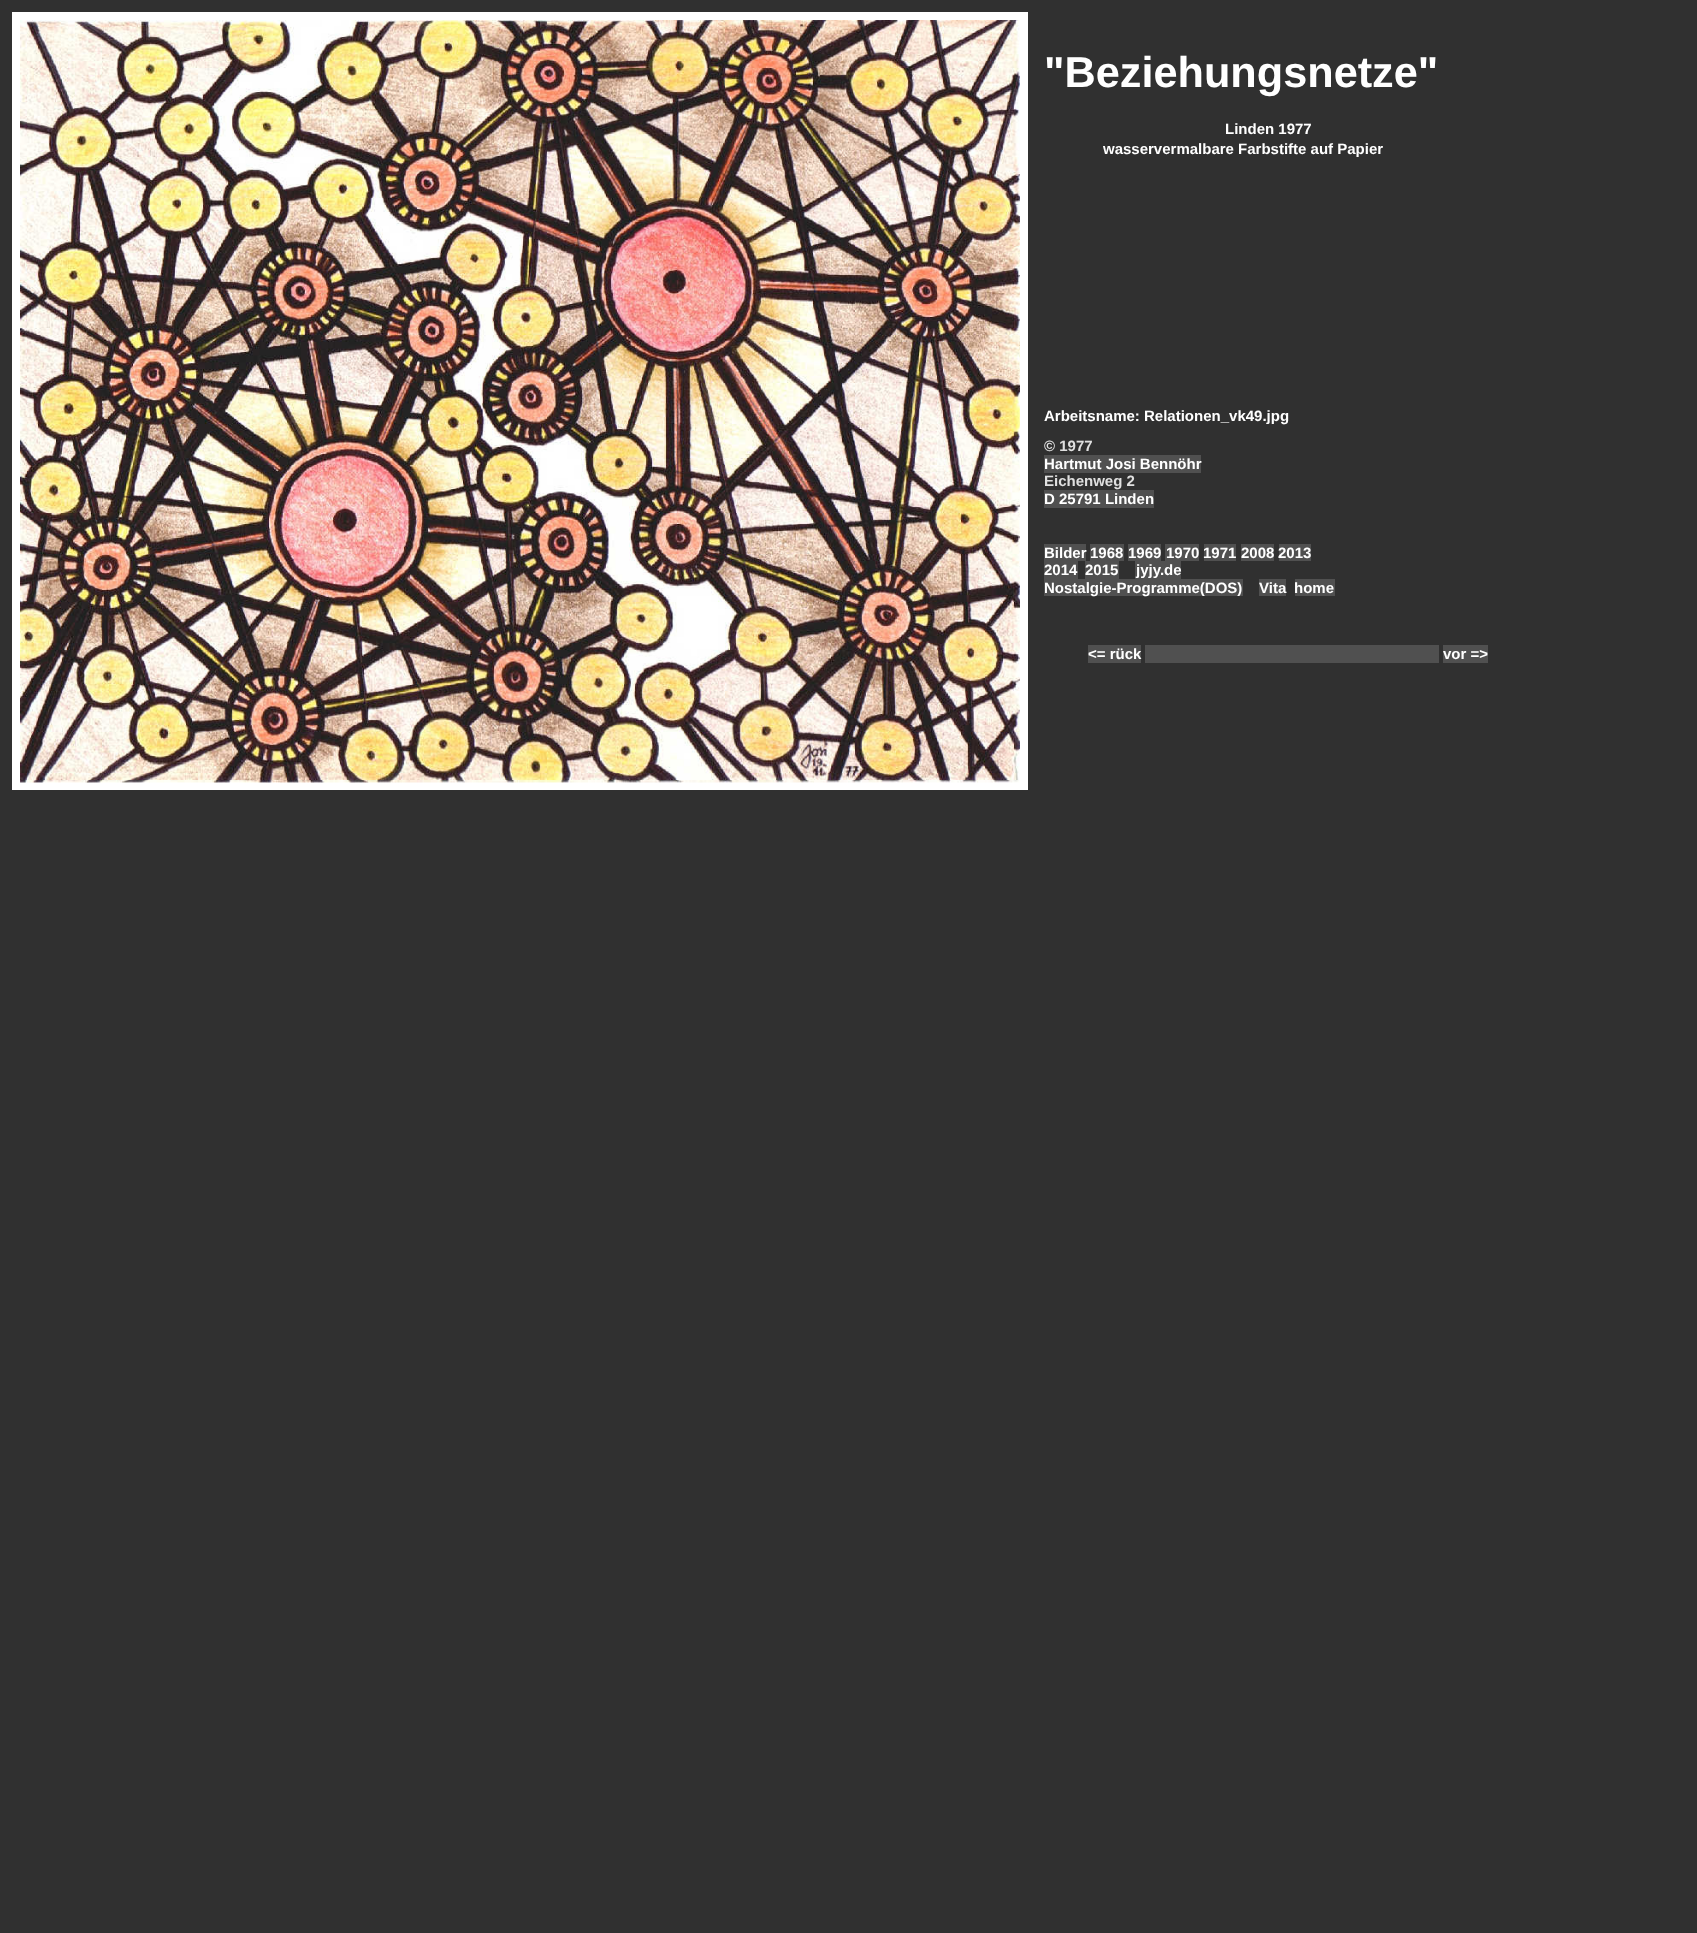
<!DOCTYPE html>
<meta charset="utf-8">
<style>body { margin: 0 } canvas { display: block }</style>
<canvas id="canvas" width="1697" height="1933"></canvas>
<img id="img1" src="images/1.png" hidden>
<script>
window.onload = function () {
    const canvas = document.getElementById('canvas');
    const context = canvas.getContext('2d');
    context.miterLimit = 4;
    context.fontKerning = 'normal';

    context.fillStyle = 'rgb(48, 48, 48)';
    context.fillRect(0, 0, 1697, 1933);
    context.fillStyle = 'rgb(255, 255, 255)';
    context.fillRect(12, 12, 1016, 778);
    context.drawImage(document.getElementById('img1'), 20, 20, 1000, 763);
    context.fillStyle = 'rgb(80, 80, 80)';
    context.fillRect(1044, 455, 157, 18);
    context.fillRect(1044, 490, 110, 18);
    context.fillRect(1044, 544, 42, 17);
    context.fillRect(1090, 544, 34, 17);
    context.fillRect(1128, 544, 33, 17);
    context.fillRect(1165, 544, 34, 17);
    context.fillRect(1204, 544, 32, 17);
    context.fillRect(1241, 544, 33, 17);
    context.fillRect(1279, 544, 32, 17);
    context.fillRect(1044, 561, 34, 18);
    context.fillRect(1085, 561, 34, 18);
    context.fillRect(1135, 561, 46, 18);
    context.fillRect(1044, 579, 199, 17);
    context.fillRect(1259, 579, 27, 17);
    context.fillRect(1295, 579, 40, 17);
    context.fillRect(1088, 645, 53, 18);
    context.fillRect(1145, 645, 294, 18);
    context.fillRect(1443, 645, 45, 18);
    context.font = 'bold 43.25px Liberation Sans';
    context.fillStyle = 'rgb(255, 255, 255)';
    context.fillText('"Beziehungsnetze"', 1044, 87);
    context.font = 'bold 15px Liberation Sans';
    context.fillText('Linden 1977', 1225, 134);
    context.fillText('wasservermalbare Farbstifte auf Papier', 1103, 154);
    context.fillText('Arbeitsname: Relationen_vk49.jpg', 1044, 421);
    context.fillStyle = 'rgb(224, 224, 224)';
    context.fillText('© 1977', 1044, 451);
    context.fillStyle = 'rgb(255, 255, 255)';
    context.fillText('Hartmut Josi Bennöhr', 1044, 469);
    context.fillStyle = 'rgb(224, 224, 224)';
    context.fillText('Eichenweg 2', 1044, 486);
    context.fillStyle = 'rgb(255, 255, 255)';
    context.fillText('D 25791 Linden', 1044, 504);
    context.fillText('Bilder', 1044, 558);
    context.fillText('1968', 1090, 558);
    context.fillText('1969', 1128, 558);
    context.fillText('1970', 1166, 558);
    context.fillText('1971', 1203, 558);
    context.fillText('2008', 1241, 558);
    context.fillText('2013', 1278, 558);
    context.fillText('2014', 1044, 575);
    context.fillText('2015', 1085, 575);
    context.fillText('jyjy.de', 1136, 575);
    context.fillText('Nostalgie-Programme(DOS)', 1044, 593);
    context.fillText('Vita', 1259, 593);
    context.fillText('home', 1294, 593);
    context.fillText('<= rück', 1088, 659);
    context.fillText('vor =>', 1443, 659);
};
</script>
